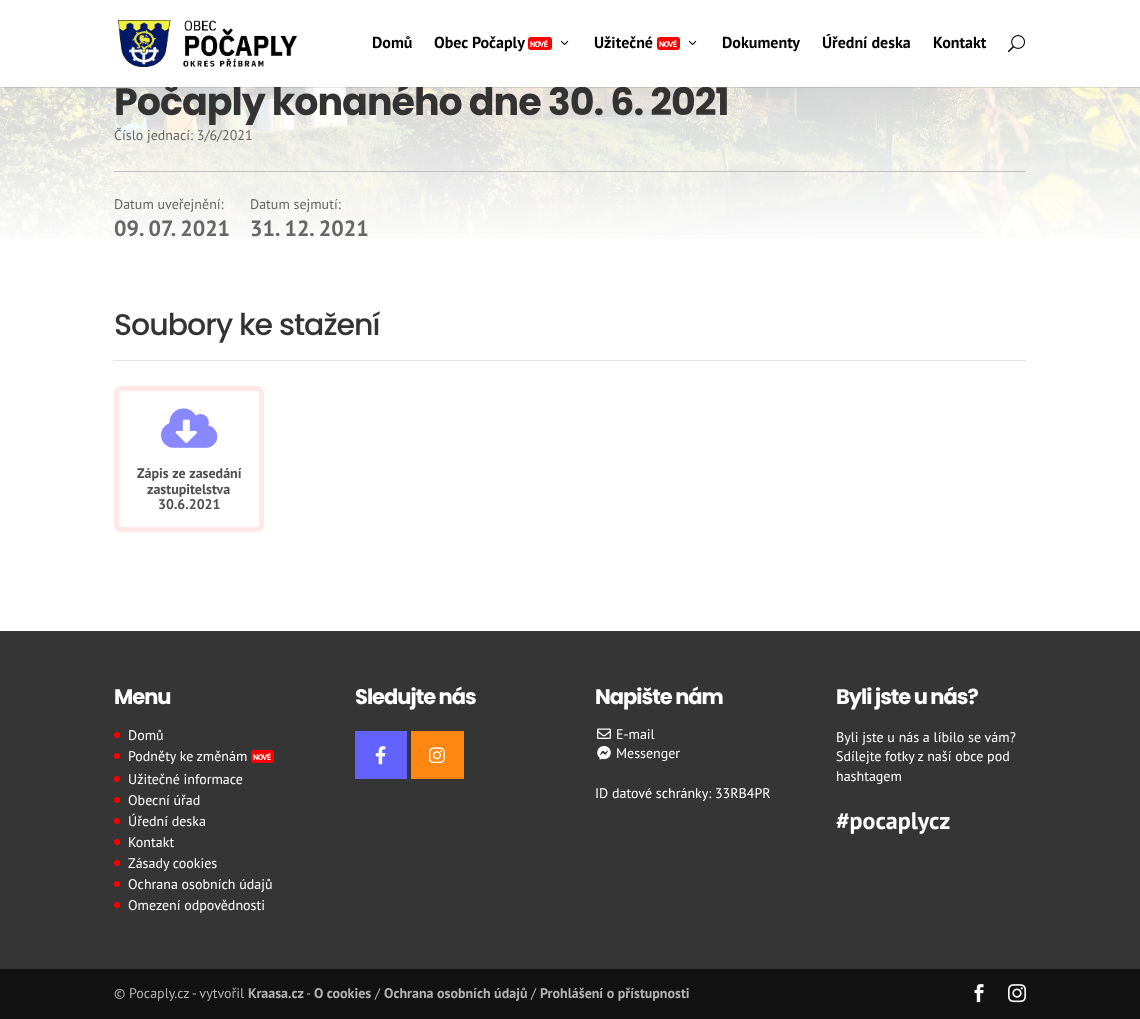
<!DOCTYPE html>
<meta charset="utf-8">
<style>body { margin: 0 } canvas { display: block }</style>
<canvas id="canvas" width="1140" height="1019"></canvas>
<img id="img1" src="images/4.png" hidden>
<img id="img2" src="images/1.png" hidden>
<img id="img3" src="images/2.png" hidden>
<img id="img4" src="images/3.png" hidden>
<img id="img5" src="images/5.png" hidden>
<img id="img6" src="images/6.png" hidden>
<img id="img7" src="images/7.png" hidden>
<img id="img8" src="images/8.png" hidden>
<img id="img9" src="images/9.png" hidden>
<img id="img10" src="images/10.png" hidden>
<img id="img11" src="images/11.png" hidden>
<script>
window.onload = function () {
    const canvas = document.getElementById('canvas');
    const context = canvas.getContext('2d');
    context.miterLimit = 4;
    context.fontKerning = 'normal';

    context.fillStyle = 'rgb(255, 255, 255)';
    context.fillRect(0, 0, 1140, 1019);
    context.drawImage(document.getElementById('img1'), 0, 87, 1140, 152);
    context.fillStyle = 'rgba(0, 0, 0, 0.1)';
    context.fillRect(0, 87, 1140, 1);
    context.drawImage(document.getElementById('img2'), 118, 20, 179, 47);
    context.fillStyle = 'rgb(255, 0, 0)';
    context.beginPath();
    context.roundRect(528, 37, 24, 13, 3);
    context.fill();
    context.drawImage(document.getElementById('img3'), 560, 40, 9, 5);
    context.beginPath();
    context.roundRect(657, 37, 23, 13, 3);
    context.fill();
    context.drawImage(document.getElementById('img3'), 688, 40, 9, 5);
    context.drawImage(document.getElementById('img4'), 1008, 35, 17, 18);
    context.fillStyle = 'rgb(192, 192, 192)';
    context.fillRect(114, 171, 912, 1);
    context.fillStyle = 'rgb(228, 228, 228)';
    context.fillRect(114, 360, 912, 1);
    context.beginPath();
    context.roundRect(116.5, 388.5, 145, 141, 4.5);
    context.strokeStyle = 'rgb(255, 232, 231)';
    context.lineWidth = 5;
    context.stroke();
    context.drawImage(document.getElementById('img5'), 161, 408, 57, 40);
    context.fillStyle = 'rgb(53, 53, 53)';
    context.fillRect(0, 631, 1140, 338);
    context.fillStyle = 'rgb(255, 0, 0)';
    context.beginPath();
    context.arc(117, 735, 3, 0, 2 * Math.PI);
    context.fill();
    context.beginPath();
    context.arc(117, 756, 3, 0, 2 * Math.PI);
    context.fill();
    context.beginPath();
    context.roundRect(251, 750, 23, 13, 3);
    context.fill();
    context.beginPath();
    context.arc(117, 779, 3, 0, 2 * Math.PI);
    context.fill();
    context.beginPath();
    context.arc(117, 800, 3, 0, 2 * Math.PI);
    context.fill();
    context.beginPath();
    context.arc(117, 821, 3, 0, 2 * Math.PI);
    context.fill();
    context.beginPath();
    context.arc(117, 842, 3, 0, 2 * Math.PI);
    context.fill();
    context.beginPath();
    context.arc(117, 863, 3, 0, 2 * Math.PI);
    context.fill();
    context.beginPath();
    context.arc(117, 884, 3, 0, 2 * Math.PI);
    context.fill();
    context.beginPath();
    context.arc(117, 905, 3, 0, 2 * Math.PI);
    context.fill();
    context.fillStyle = 'rgb(98, 98, 255)';
    context.fillRect(355, 731, 52, 48);
    context.drawImage(document.getElementById('img6'), 375, 746, 11, 19);
    context.fillStyle = 'rgb(255, 135, 17)';
    context.fillRect(411, 731, 53, 48);
    context.drawImage(document.getElementById('img7'), 429, 747, 16, 17);
    context.drawImage(document.getElementById('img8'), 597, 728, 14, 11);
    context.drawImage(document.getElementById('img9'), 597, 746, 14, 14);
    context.fillStyle = 'rgb(18, 18, 18)';
    context.fillRect(0, 969, 1140, 50);
    context.drawImage(document.getElementById('img10'), 974, 984, 10, 19);
    context.drawImage(document.getElementById('img11'), 1008, 984, 18, 19);
    context.font = 'bold 16px PT Sans';
    context.fillStyle = 'rgb(0, 0, 0)';
    context.fillText('Domů', 372, 48);
    context.fillText('Obec Počaply', 434, 48);
    context.letterSpacing = '-0.5px';
    context.font = 'bold 8px PT Sans';
    context.fillStyle = 'rgb(255, 255, 255)';
    context.fillText('NOVÉ', 530, 47);
    context.letterSpacing = '0px';
    context.font = 'bold 16px PT Sans';
    context.fillStyle = 'rgb(0, 0, 0)';
    context.fillText('Užitečné', 594, 48);
    context.letterSpacing = '-0.5px';
    context.font = 'bold 8px PT Sans';
    context.fillStyle = 'rgb(255, 255, 255)';
    context.fillText('NOVÉ', 659, 47);
    context.letterSpacing = '0px';
    context.font = 'bold 16px PT Sans';
    context.fillStyle = 'rgb(0, 0, 0)';
    context.fillText('Dokumenty', 722, 48);
    context.fillText('Úřední deska', 822, 48);
    context.fillText('Kontakt', 933, 48);
    context.letterSpacing = '-1px';
    context.font = 'bold 38px Poppins';
    context.fillStyle = 'rgb(51, 51, 51)';
    context.fillText('Počaply konaného dne 30. 6. 2021', 114, 115);
    context.fillStyle = 'rgb(255, 255, 255)';
    context.fillRect(165, 83, 544, 4);
    context.letterSpacing = '0px';
    context.font = '14px PT Sans';
    context.fillStyle = 'rgb(102, 102, 102)';
    context.fillText('Číslo jednací: 3/6/2021', 114, 140);
    context.fillText('Datum uveřejnění:', 114, 209);
    context.font = 'bold 22px PT Sans';
    context.fillText('09. 07. 2021', 114, 236);
    context.font = '14px PT Sans';
    context.fillText('Datum sejmutí:', 250, 209);
    context.font = 'bold 22px PT Sans';
    context.fillText('31. 12. 2021', 250, 236);
    context.letterSpacing = '-1px';
    context.font = '500 30px Poppins';
    context.fillStyle = 'rgb(51, 51, 51)';
    context.fillText('Soubory ke stažení', 114, 335);
    context.letterSpacing = '0px';
    context.font = 'bold 14px PT Sans';
    context.fillStyle = 'rgb(79, 79, 79)';
    context.fillText('Zápis ze zasedání', 137, 478);
    context.fillText('zastupitelstva', 147, 494);
    context.fillText('30.6.2021', 158, 509);
    context.letterSpacing = '-1px';
    context.font = 'bold 21px Poppins';
    context.fillStyle = 'rgb(255, 255, 255)';
    context.fillText('Menu', 114, 704);
    context.letterSpacing = '0px';
    context.font = '14px PT Sans';
    context.fillText('Domů', 128, 740);
    context.fillText('Podněty ke změnám', 128, 761);
    context.letterSpacing = '-0.5px';
    context.font = 'bold 8px PT Sans';
    context.fillText('NOVÉ', 253, 760);
    context.letterSpacing = '0px';
    context.font = '14px PT Sans';
    context.fillText('Užitečné informace', 128, 784);
    context.fillText('Obecní úřad', 128, 805);
    context.fillText('Úřední deska', 128, 826);
    context.fillText('Kontakt', 128, 847);
    context.fillText('Zásady cookies', 128, 868);
    context.fillText('Ochrana osobních údajů', 128, 889);
    context.fillText('Omezení odpovědnosti', 128, 910);
    context.letterSpacing = '-1px';
    context.font = 'bold 21px Poppins';
    context.fillText('Sledujte nás', 355, 704);
    context.fillText('Napište nám', 595, 704);
    context.letterSpacing = '0px';
    context.font = '14px PT Sans';
    context.fillText('E-mail', 616, 739);
    context.fillText('Messenger', 616, 758);
    context.fillText('ID datové schránky: 33RB4PR', 595, 798);
    context.letterSpacing = '-1px';
    context.font = 'bold 21px Poppins';
    context.fillText('Byli jste u nás?', 836, 704);
    context.letterSpacing = '0px';
    context.font = '14px PT Sans';
    context.fillText('Byli jste u nás a líbilo se vám?', 836, 742);
    context.fillText('Sdílejte fotky z naší obce pod', 836, 761);
    context.fillText('hashtagem', 836, 781);
    context.font = 'bold 24px PT Sans';
    context.fillText('#pocaplycz', 836, 829);
    context.font = '14px PT Sans';
    context.fillStyle = 'rgb(178, 178, 178)';
    context.fillText('© Pocaply.cz - vytvořil', 114, 998);
    context.font = 'bold 14px PT Sans';
    context.fillText('Kraasa.cz', 248, 998);
    context.font = '14px PT Sans';
    context.fillText('-', 306, 998);
    context.font = 'bold 14px PT Sans';
    context.fillText('O cookies', 314, 998);
    context.font = '14px PT Sans';
    context.fillText('/', 375, 998);
    context.font = 'bold 14px PT Sans';
    context.fillText('Ochrana osobních údajů', 384, 998);
    context.font = '14px PT Sans';
    context.fillText('/', 531, 998);
    context.font = 'bold 14px PT Sans';
    context.fillText('Prohlášení o přístupnosti', 540, 998);
};
</script>
